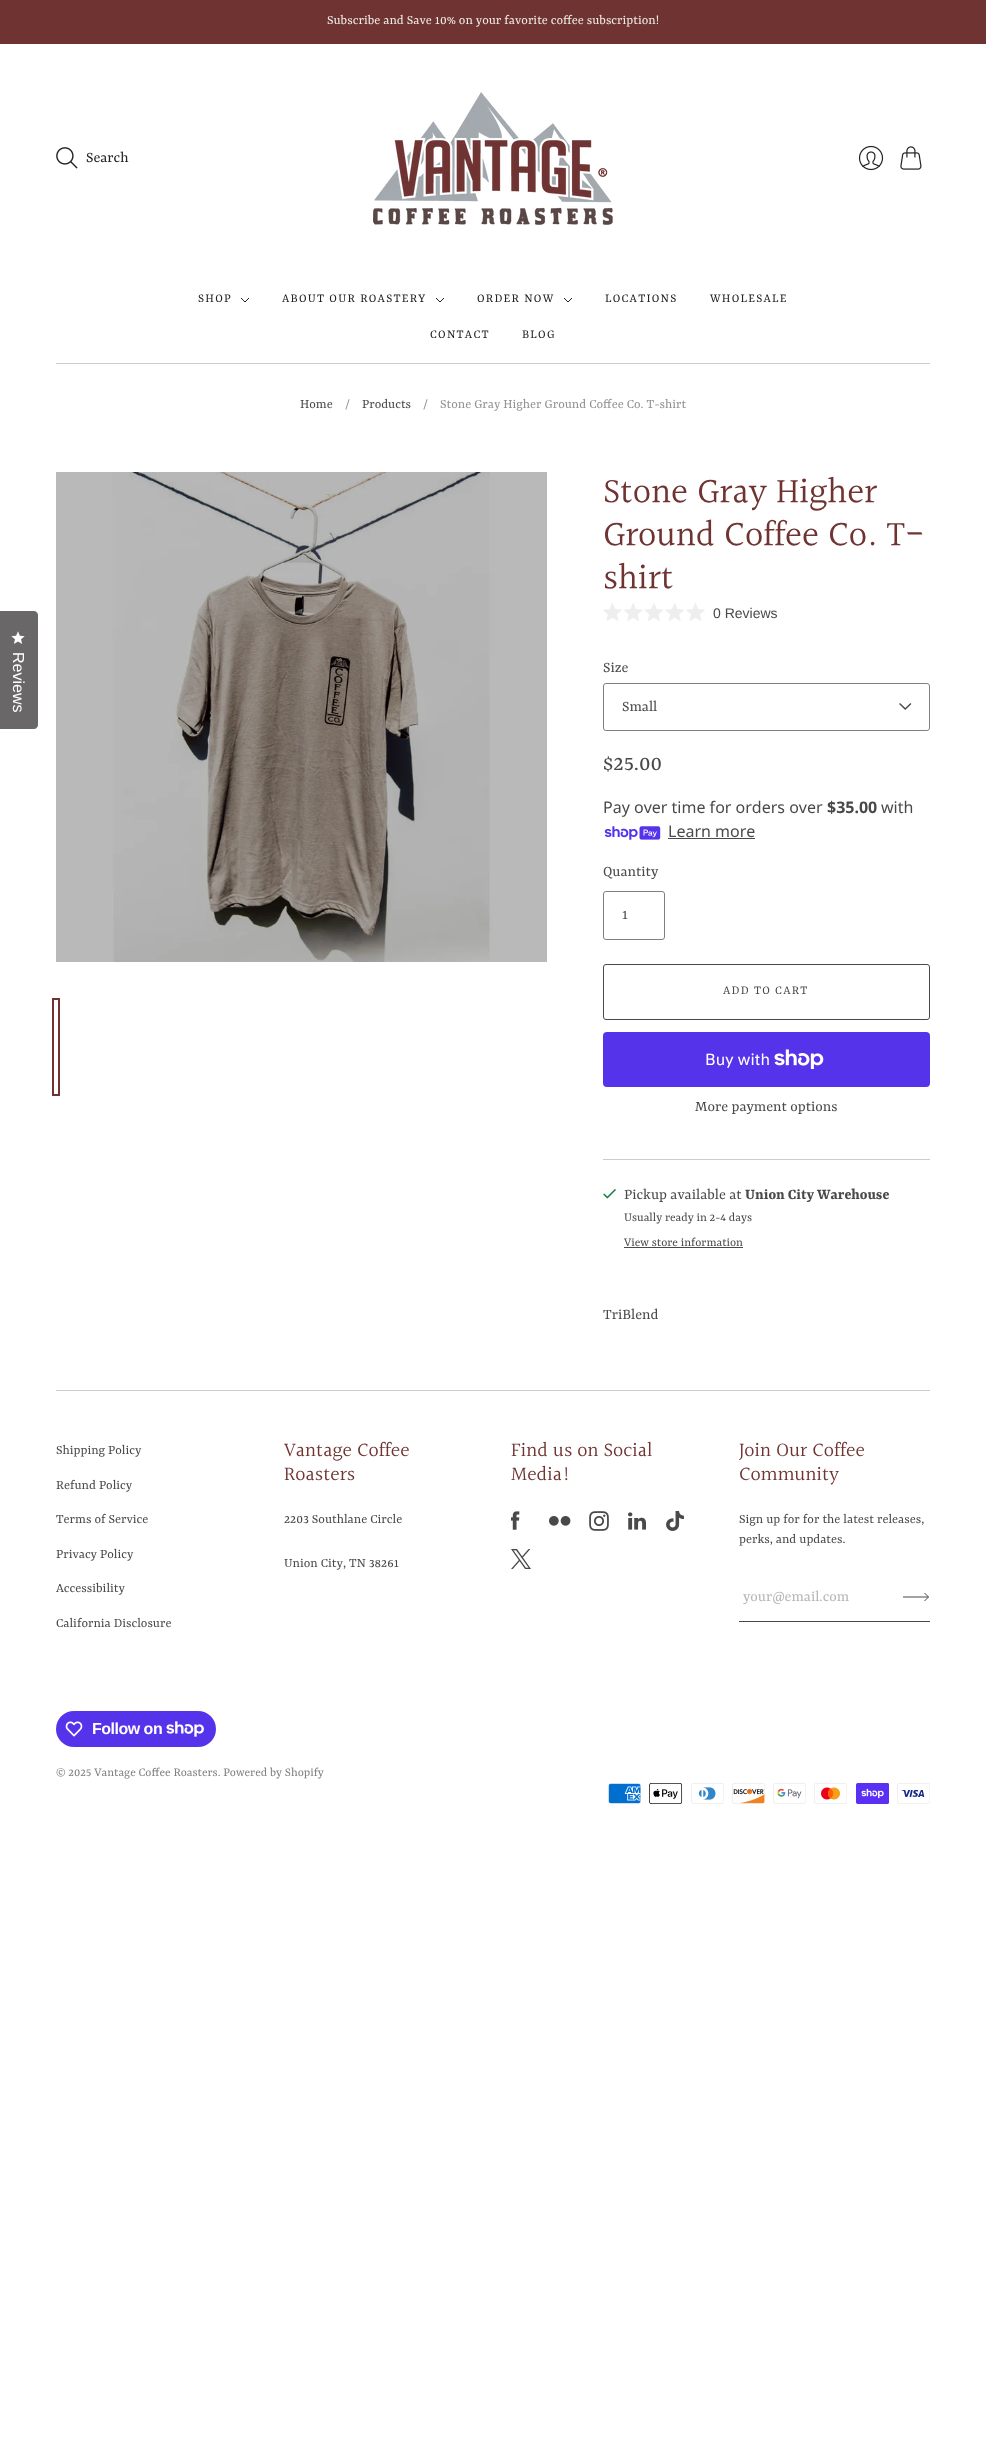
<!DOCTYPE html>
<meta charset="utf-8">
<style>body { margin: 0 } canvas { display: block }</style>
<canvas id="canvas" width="986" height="2442"></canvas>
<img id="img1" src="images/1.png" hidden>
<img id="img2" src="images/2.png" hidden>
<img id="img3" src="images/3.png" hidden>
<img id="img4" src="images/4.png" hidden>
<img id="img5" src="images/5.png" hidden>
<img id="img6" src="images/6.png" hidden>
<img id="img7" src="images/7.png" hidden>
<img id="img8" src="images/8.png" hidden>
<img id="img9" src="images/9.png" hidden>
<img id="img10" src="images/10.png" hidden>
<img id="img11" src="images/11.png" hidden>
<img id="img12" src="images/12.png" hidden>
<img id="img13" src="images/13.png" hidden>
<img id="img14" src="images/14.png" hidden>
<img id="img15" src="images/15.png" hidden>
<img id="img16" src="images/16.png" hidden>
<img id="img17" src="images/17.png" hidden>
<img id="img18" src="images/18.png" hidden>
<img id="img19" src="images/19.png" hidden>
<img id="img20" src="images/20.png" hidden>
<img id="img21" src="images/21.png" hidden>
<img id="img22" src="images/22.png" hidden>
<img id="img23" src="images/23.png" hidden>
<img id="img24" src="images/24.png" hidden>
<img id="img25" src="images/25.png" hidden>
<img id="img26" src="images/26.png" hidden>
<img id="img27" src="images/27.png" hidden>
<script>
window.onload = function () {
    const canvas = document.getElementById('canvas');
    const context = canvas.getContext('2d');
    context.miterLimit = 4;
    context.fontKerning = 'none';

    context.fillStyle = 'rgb(255, 255, 255)';
    context.fillRect(0, 0, 986, 2442);
    context.fillStyle = 'rgb(111, 51, 50)';
    context.fillRect(0, 0, 986, 44);
    context.drawImage(document.getElementById('img1'), 56, 147, 22, 22);
    context.drawImage(document.getElementById('img2'), 858, 145, 26, 26);
    context.drawImage(document.getElementById('img3'), 900, 146, 22, 24);
    context.fillStyle = 'rgb(206, 203, 203)';
    context.fillRect(56, 363, 874, 1);
    context.drawImage(document.getElementById('img4'), 373, 92, 240, 133);
    context.beginPath();
    context.moveTo(241, 298);
    context.lineTo(245, 302);
    context.lineTo(249, 298);
    context.strokeStyle = 'rgb(33, 33, 33)';
    context.stroke();
    context.beginPath();
    context.moveTo(436, 298);
    context.lineTo(440, 302);
    context.lineTo(444, 298);
    context.stroke();
    context.beginPath();
    context.moveTo(564, 298);
    context.lineTo(568, 302);
    context.lineTo(572, 298);
    context.stroke();
    context.fillStyle = 'rgb(105, 103, 103)';
    context.beginPath();
    context.moveTo(-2, 611);
    context.lineTo(34, 611);
    context.bezierCurveTo(36, 611, 38, 613, 38, 615);
    context.lineTo(38, 725);
    context.bezierCurveTo(38, 727, 36, 729, 34, 729);
    context.lineTo(-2, 729);
    context.closePath();
    context.fill();
    context.drawImage(document.getElementById('img5'), 11, 631, 14, 13);
    context.drawImage(document.getElementById('img6'), 56, 472, 491, 490);
    context.fillStyle = 'rgb(111, 51, 50)';
    context.fillRect(52, 998, 8, 98);
    context.fillStyle = 'rgb(255, 255, 255)';
    context.fillRect(54, 1000, 4, 94);
    context.drawImage(document.getElementById('img7'), 603, 603, 102, 18);
    context.beginPath();
    context.roundRect(603.5, 683.5, 326, 47, 2.5);
    context.strokeStyle = 'rgb(129, 127, 127)';
    context.stroke();
    context.drawImage(document.getElementById('img8'), 899, 703, 13, 7);
    context.drawImage(document.getElementById('img9'), 604, 826, 57, 14);
    context.fillStyle = 'rgb(75, 72, 72)';
    context.fillRect(668, 838, 87, 1);
    context.beginPath();
    context.roundRect(603.5, 891.5, 61, 48, 2.5);
    context.stroke();
    context.beginPath();
    context.roundRect(603.5, 964.5, 326, 55, 2.5);
    context.strokeStyle = 'rgb(75, 72, 72)';
    context.stroke();
    context.fillStyle = 'rgb(84, 51, 235)';
    context.beginPath();
    context.roundRect(603, 1032, 327, 55, 4);
    context.fill();
    context.drawImage(document.getElementById('img10'), 774, 1049, 50, 20);
    context.fillStyle = 'rgb(206, 203, 203)';
    context.fillRect(603, 1159, 327, 1);
    context.drawImage(document.getElementById('img11'), 603, 1189, 13, 10);
    context.fillStyle = 'rgb(75, 72, 72)';
    context.fillRect(624, 1247, 119, 1);
    context.fillStyle = 'rgb(206, 203, 203)';
    context.fillRect(56, 1390, 874, 1);
    context.drawImage(document.getElementById('img12'), 511, 1511, 9, 19);
    context.drawImage(document.getElementById('img13'), 549, 1516, 22, 10);
    context.drawImage(document.getElementById('img14'), 589, 1511, 20, 20);
    context.drawImage(document.getElementById('img15'), 628, 1512, 18, 18);
    context.drawImage(document.getElementById('img16'), 666, 1511, 18, 20);
    context.drawImage(document.getElementById('img17'), 511, 1549, 20, 20);
    context.fillStyle = 'rgb(75, 72, 72)';
    context.fillRect(739, 1621, 191, 1);
    context.beginPath();
    context.moveTo(903, 1597);
    context.lineTo(928.5, 1597);
    context.moveTo(928.5, 1597);
    context.lineTo(924.5, 1593);
    context.moveTo(928.5, 1597);
    context.lineTo(924.5, 1601);
    context.stroke();
    context.fillStyle = 'rgb(84, 51, 235)';
    context.beginPath();
    context.roundRect(56, 1711, 160, 36, 18);
    context.fill();
    context.drawImage(document.getElementById('img18'), 65, 1721, 18, 16);
    context.drawImage(document.getElementById('img19'), 166, 1721, 38, 16);
    context.drawImage(document.getElementById('img20'), 608, 1783, 33, 21);
    context.drawImage(document.getElementById('img21'), 649, 1783, 34, 21);
    context.drawImage(document.getElementById('img22'), 691, 1783, 33, 21);
    context.drawImage(document.getElementById('img23'), 732, 1783, 33, 21);
    context.drawImage(document.getElementById('img24'), 773, 1783, 33, 21);
    context.drawImage(document.getElementById('img25'), 814, 1783, 33, 21);
    context.drawImage(document.getElementById('img26'), 856, 1783, 33, 21);
    context.drawImage(document.getElementById('img27'), 897, 1783, 33, 21);
    context.font = '14px Rasa';
    context.fillStyle = 'rgb(238, 236, 232)';
    context.fillText('Subscribe and Save 10% on your favorite coffee subscription!', 327, 24);
    context.font = '16px Rasa';
    context.fillStyle = 'rgb(33, 33, 33)';
    context.fillText('Search', 86, 162);
    context.letterSpacing = '1.25px';
    context.font = '13px Rasa';
    context.fillText('SHOP', 198, 302);
    context.fillText('ABOUT OUR ROASTERY', 282, 302);
    context.fillText('ORDER NOW', 477, 302);
    context.fillText('LOCATIONS', 605, 302);
    context.fillText('WHOLESALE', 710, 302);
    context.fillText('CONTACT', 430, 338);
    context.fillText('BLOG', 522, 338);
    context.letterSpacing = '0px';
    context.font = '16px Liberation Sans';
    context.fillStyle = 'rgb(255, 255, 255)';
    context.save();
    context.translate(13, 652);
    context.rotate(90.1 * Math.PI / 180);
    context.fillText('Reviews', 0, 0);
    context.restore();
    context.font = '14px Rasa';
    context.fillStyle = 'rgb(75, 72, 72)';
    context.fillText('Home', 300, 408);
    context.fillStyle = 'rgb(147, 145, 145)';
    context.fillText('/', 345, 408);
    context.fillStyle = 'rgb(75, 72, 72)';
    context.fillText('Products', 362, 408);
    context.fillStyle = 'rgb(147, 145, 145)';
    context.fillText('/', 423, 408);
    context.fillText('Stone Gray Higher Ground Coffee Co. T-shirt', 440, 408);
    context.font = '36px Halant';
    context.fillStyle = 'rgb(111, 51, 50)';
    context.fillText('Stone Gray Higher', 603, 504);
    context.fillText('Ground Coffee Co. T-', 603, 547);
    context.fillText('shirt', 603, 590);
    context.font = '14px Liberation Sans';
    context.fillStyle = 'rgb(75, 72, 72)';
    context.fillText('0 Reviews', 713, 618);
    context.font = '16px Rasa';
    context.fillText('Size', 603, 672);
    context.fillText('Small', 622, 711);
    context.font = '24px Rasa';
    context.fillText('$25.00', 603, 770);
    context.font = '16px Noto Sans';
    context.fillText('Pay over time for orders over', 603, 813);
    context.font = 'bold 16px Noto Sans';
    context.fillText('$35.00', 827, 813);
    context.font = '16px Noto Sans';
    context.fillText('with', 881, 813);
    context.fillText('Learn more', 668, 837);
    context.font = '16px Rasa';
    context.fillText('Quantity', 603, 876);
    context.fillText('1', 622, 919);
    context.letterSpacing = '1.25px';
    context.font = '13px Rasa';
    context.fillText('ADD TO CART', 723, 994);
    context.letterSpacing = '0px';
    context.font = '16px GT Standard';
    context.fillStyle = 'rgb(255, 255, 255)';
    context.fillText('Buy with', 705, 1065);
    context.font = '16px Rasa';
    context.fillStyle = 'rgb(75, 72, 72)';
    context.fillText('More payment options', 695, 1111);
    context.fillText('Pickup available at', 624, 1199);
    context.font = 'bold 16px Rasa';
    context.fillText('Union City Warehouse', 745, 1199);
    context.font = '13px Rasa';
    context.fillText('Usually ready in 2-4 days', 624, 1221);
    context.fillText('View store information', 624, 1246);
    context.font = '16px Rasa';
    context.fillText('TriBlend', 603, 1319);
    context.font = '14px Rasa';
    context.fillText('Shipping Policy', 56, 1454);
    context.fillText('Refund Policy', 56, 1489);
    context.fillText('Terms of Service', 56, 1523);
    context.fillText('Privacy Policy', 56, 1558);
    context.fillText('Accessibility', 56, 1592);
    context.fillText('California Disclosure', 56, 1627);
    context.font = '20px Halant';
    context.fillStyle = 'rgb(111, 51, 50)';
    context.fillText('Vantage Coffee', 284, 1457);
    context.fillText('Roasters', 284, 1481);
    context.font = '14px Rasa';
    context.fillStyle = 'rgb(75, 72, 72)';
    context.fillText('2203 Southlane Circle', 284, 1523);
    context.fillText('Union City, TN 38261', 284, 1567);
    context.font = '20px Halant';
    context.fillStyle = 'rgb(111, 51, 50)';
    context.fillText('Find us on Social', 511, 1457);
    context.fillText('Media!', 511, 1481);
    context.fillText('Join Our Coffee', 739, 1457);
    context.fillText('Community', 739, 1481);
    context.font = '14px Rasa';
    context.fillStyle = 'rgb(75, 72, 72)';
    context.fillText('Sign up for for the latest releases,', 739, 1523);
    context.fillText('perks, and updates.', 739, 1543);
    context.font = '16px Rasa';
    context.fillStyle = 'rgb(183, 182, 182)';
    context.fillText('your@email.com', 743, 1601);
    context.letterSpacing = '-0.5px';
    context.font = 'bold 16px Liberation Sans';
    context.fillStyle = 'rgb(255, 255, 255)';
    context.fillText('Follow on', 92, 1734);
    context.letterSpacing = '0px';
    context.font = '13px Rasa';
    context.fillStyle = 'rgb(129, 127, 127)';
    context.fillText('© 2025 Vantage Coffee Roasters. Powered by Shopify', 56, 1776);
};
</script>
